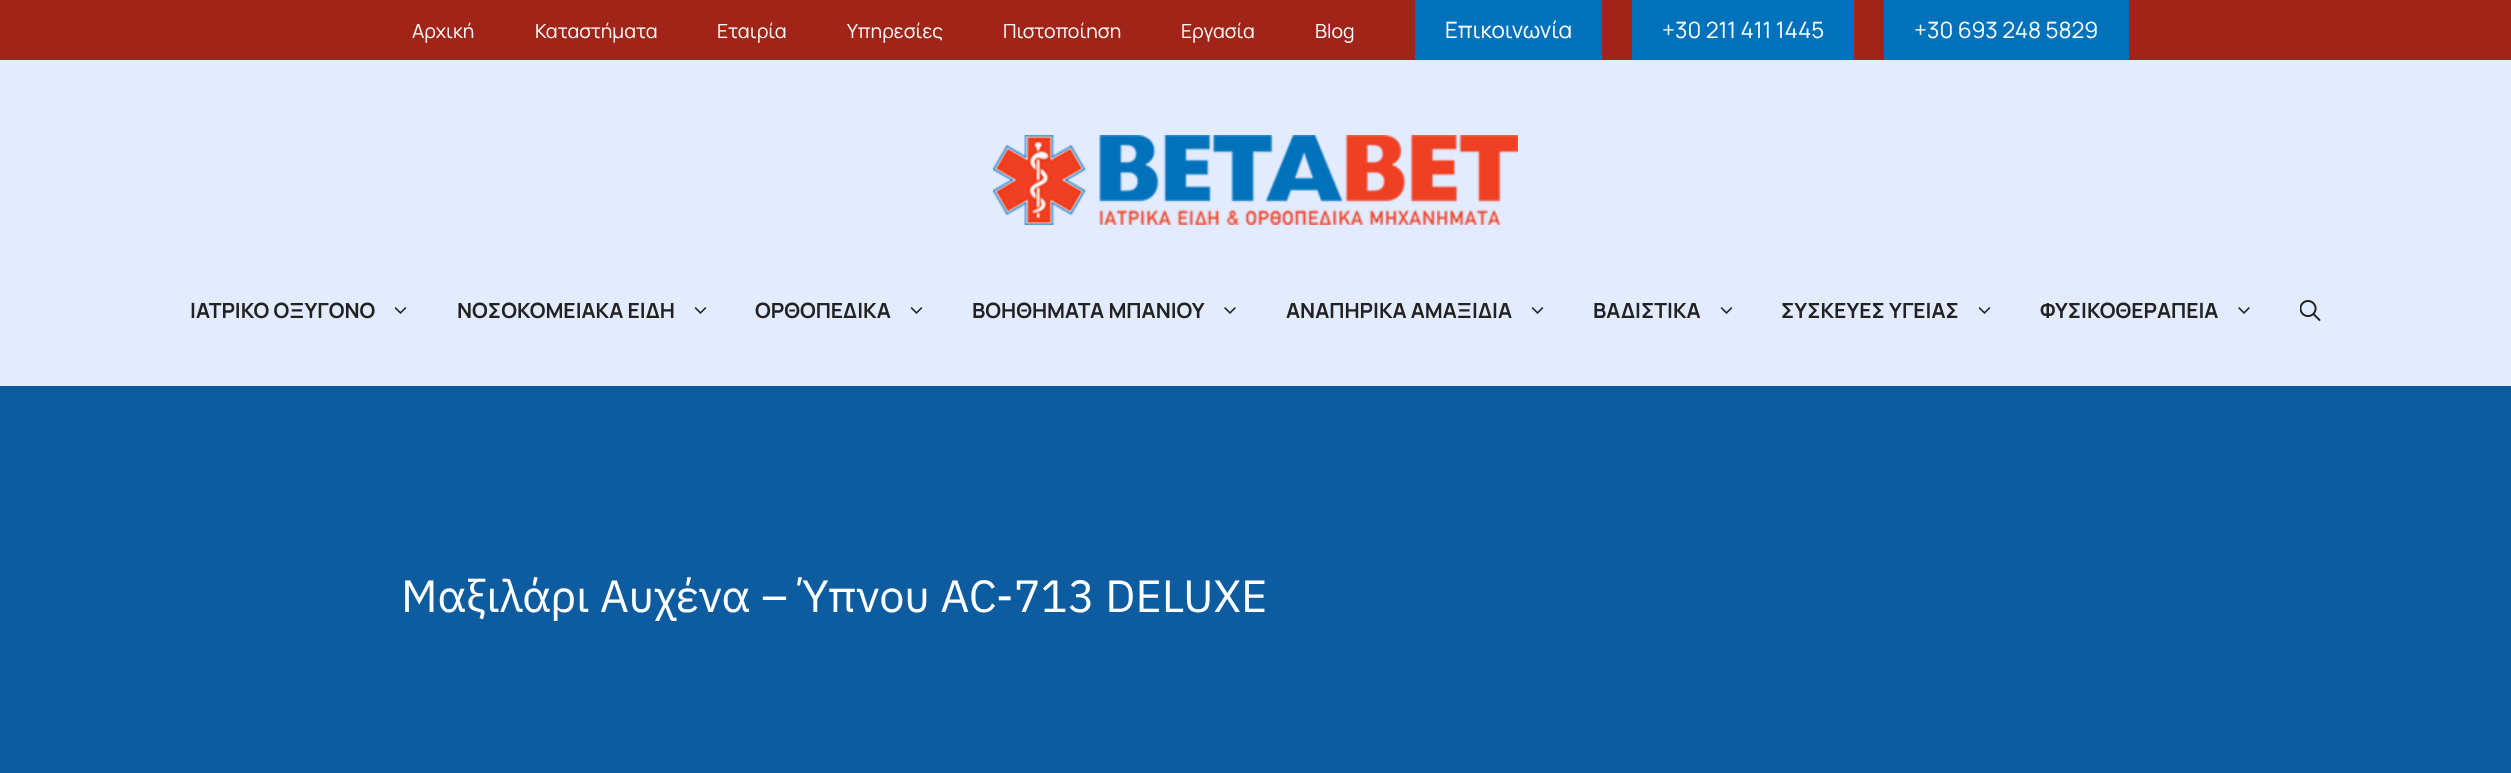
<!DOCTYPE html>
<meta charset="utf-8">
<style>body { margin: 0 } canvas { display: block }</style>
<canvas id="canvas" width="2511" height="773"></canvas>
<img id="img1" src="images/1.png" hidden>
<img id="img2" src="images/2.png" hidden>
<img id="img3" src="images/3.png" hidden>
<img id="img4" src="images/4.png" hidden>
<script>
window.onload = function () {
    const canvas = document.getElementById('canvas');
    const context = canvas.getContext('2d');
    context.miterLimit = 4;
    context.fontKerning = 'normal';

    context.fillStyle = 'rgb(227, 235, 255)';
    context.fillRect(0, 0, 2511, 773);
    context.fillStyle = 'rgb(160, 37, 24)';
    context.fillRect(0, 0, 2511, 60);
    context.fillStyle = 'rgb(0, 114, 188)';
    context.fillRect(1415, 0, 187, 60);
    context.fillRect(1632, 0, 222, 60);
    context.fillRect(1884, 0, 245, 60);
    context.drawImage(document.getElementById('img1'), 993, 135, 525, 90);
    context.drawImage(document.getElementById('img2'), 394, 307, 13, 7);
    context.drawImage(document.getElementById('img2'), 694, 307, 13, 7);
    context.drawImage(document.getElementById('img2'), 910, 307, 13, 7);
    context.drawImage(document.getElementById('img3'), 1224, 307, 12, 7);
    context.drawImage(document.getElementById('img2'), 1531, 307, 13, 7);
    context.drawImage(document.getElementById('img2'), 1720, 307, 13, 7);
    context.drawImage(document.getElementById('img2'), 1978, 307, 13, 7);
    context.drawImage(document.getElementById('img3'), 2238, 307, 12, 7);
    context.drawImage(document.getElementById('img4'), 2300, 300, 21, 21);
    context.fillStyle = 'rgb(14, 92, 160)';
    context.fillRect(0, 386, 2511, 387);
    context.font = '19.5px Manrope';
    context.fillStyle = 'rgb(255, 255, 255)';
    context.fillText('Αρχική', 412, 38);
    context.fillText('Καταστήματα', 535, 38);
    context.fillText('Εταιρία', 717, 38);
    context.fillText('Υπηρεσίες', 847, 38);
    context.fillText('Πιστοποίηση', 1003, 38);
    context.fillText('Εργασία', 1181, 38);
    context.fillText('Blog', 1315, 38);
    context.font = '22.5px Manrope';
    context.fillText('Επικοινωνία', 1445, 38);
    context.fillText('+30 211 411 1445', 1662, 38);
    context.fillText('+30 693 248 5829', 1914, 38);
    context.font = 'bold 21px Manrope';
    context.fillStyle = 'rgb(34, 34, 34)';
    context.fillText('ΙΑΤΡΙΚΟ ΟΞΥΓΟΝΟ', 190, 318);
    context.fillText('ΝΟΣΟΚΟΜΕΙΑΚΑ ΕΙΔΗ', 457, 318);
    context.fillText('ΟΡΘΟΠΕΔΙΚΑ', 755, 318);
    context.fillText('ΒΟΗΘΗΜΑΤΑ ΜΠΑΝΙΟΥ', 972, 318);
    context.fillText('ΑΝΑΠΗΡΙΚΑ ΑΜΑΞΙΔΙΑ', 1286, 318);
    context.fillText('ΒΑΔΙΣΤΙΚΑ', 1593, 318);
    context.fillText('ΣΥΣΚΕΥΕΣ ΥΓΕΙΑΣ', 1781, 318);
    context.fillText('ΦΥΣΙΚΟΘΕΡΑΠΕΙΑ', 2040, 318);
    context.font = '45px IBM Plex Sans';
    context.fillStyle = 'rgb(255, 255, 255)';
    context.fillText('Μαξιλάρι Αυχένα – Ύπνου AC-713 DELUXE', 401, 612);
};
</script>
